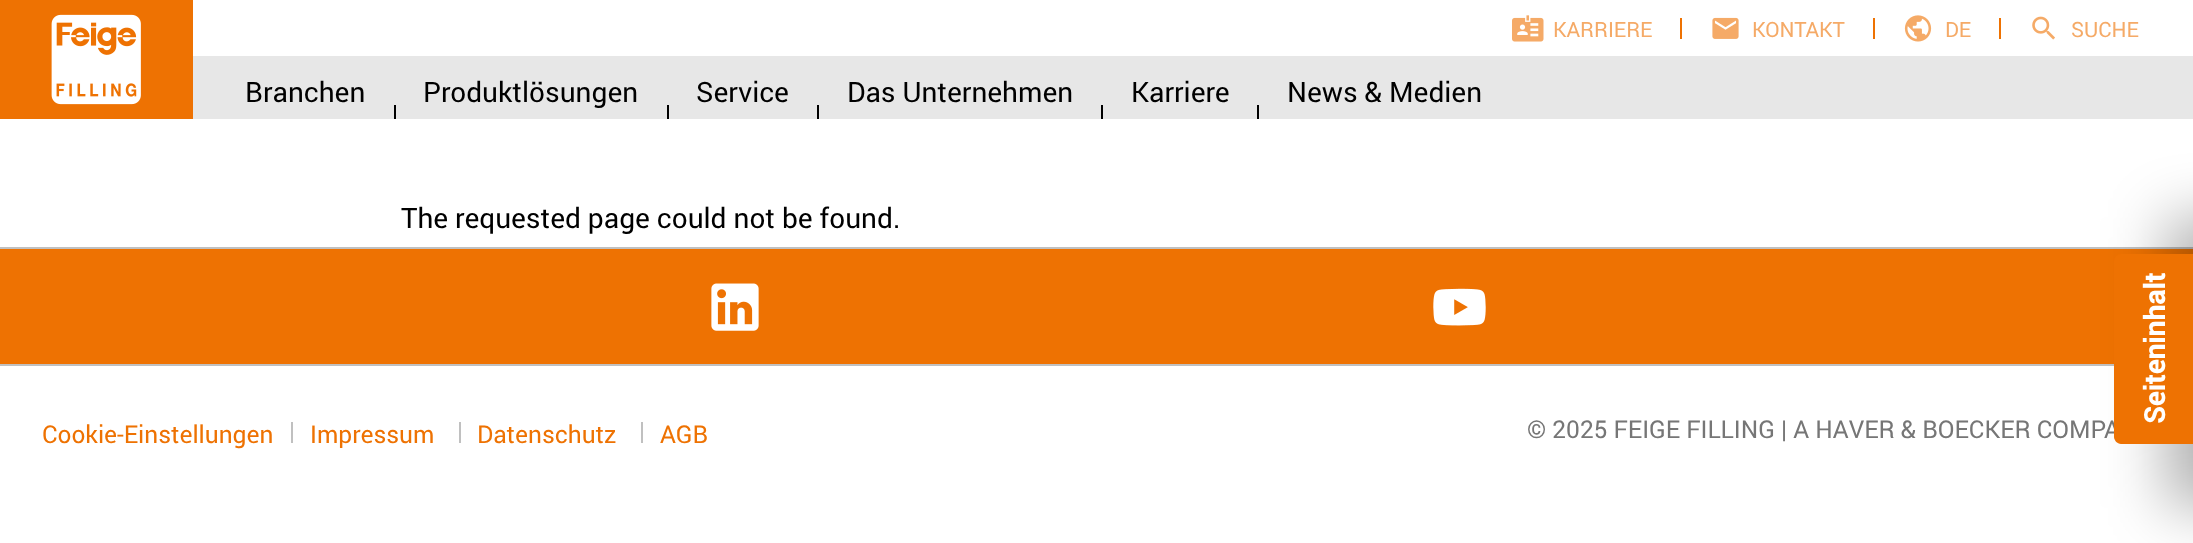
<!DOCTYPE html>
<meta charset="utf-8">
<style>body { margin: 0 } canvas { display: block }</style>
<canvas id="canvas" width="2193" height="543"></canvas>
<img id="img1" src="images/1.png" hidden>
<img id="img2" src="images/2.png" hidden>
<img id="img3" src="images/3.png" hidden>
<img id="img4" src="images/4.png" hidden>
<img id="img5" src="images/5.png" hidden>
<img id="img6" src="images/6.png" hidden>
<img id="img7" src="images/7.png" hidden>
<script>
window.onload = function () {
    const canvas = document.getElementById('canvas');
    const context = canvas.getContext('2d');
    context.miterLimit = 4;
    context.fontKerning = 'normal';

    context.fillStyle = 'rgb(255, 255, 255)';
    context.fillRect(0, 0, 2193, 543);
    context.fillStyle = 'rgba(156, 156, 156, 0.98)';
    context.fillRect(193, 56, 2000, 63);
    context.fillStyle = 'rgb(238, 114, 2)';
    context.fillRect(0, 0, 193, 119);
    context.drawImage(document.getElementById('img1'), 51, 14, 90, 91);
    context.drawImage(document.getElementById('img2'), 1512, 15, 32, 27);
    context.fillRect(1680, 18, 2, 21);
    context.drawImage(document.getElementById('img3'), 1712, 17, 27, 22);
    context.fillRect(1873, 18, 2, 21);
    context.drawImage(document.getElementById('img4'), 1904, 15, 28, 27);
    context.fillRect(1999, 18, 2, 21);
    context.drawImage(document.getElementById('img5'), 2032, 16, 23, 24);
    context.fillStyle = 'rgba(255, 255, 255, 0.75)';
    context.fillRect(193, 56, 2000, 63);
    context.fillStyle = 'rgb(0, 0, 0)';
    context.fillRect(394, 105, 2, 14);
    context.fillRect(667, 105, 2, 14);
    context.fillRect(817, 105, 2, 14);
    context.fillRect(1101, 105, 2, 14);
    context.fillRect(1257, 105, 2, 14);
    context.fillStyle = 'rgb(192, 192, 192)';
    context.fillRect(0, 364, 2114, 2);
    context.fillStyle = 'rgb(238, 114, 2)';
    context.fillRect(0, 249, 2193, 115);
    context.fillStyle = 'rgb(192, 192, 192)';
    context.fillRect(0, 247, 2193, 2);
    context.drawImage(document.getElementById('img6'), 711, 283, 48, 48);
    context.drawImage(document.getElementById('img7'), 1433, 288, 53, 38);
    context.fillStyle = 'rgba(0, 0, 0, 0.3)';
    context.filter = 'blur(30px)';
    context.beginPath();
    context.roundRect(2165, 217, 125, 291, 7);
    context.fill();
    context.filter = 'none';
    context.fillStyle = 'rgb(192, 192, 192)';
    context.fillRect(291, 422, 2, 21);
    context.fillRect(459, 422, 2, 21);
    context.fillRect(641, 422, 2, 21);
    context.font = '21px Roboto';
    context.fillStyle = 'rgb(245, 170, 103)';
    context.fillText('KARRIERE', 1553, 37);
    context.fillText('KONTAKT', 1752, 37);
    context.fillText('DE', 1945, 37);
    context.fillText('SUCHE', 2071, 37);
    context.font = '28px Roboto';
    context.fillStyle = 'rgb(0, 0, 0)';
    context.fillText('Branchen', 245, 102);
    context.fillText('Produktlösungen', 423, 102);
    context.fillText('Service', 696, 102);
    context.fillText('Das Unternehmen', 847, 102);
    context.fillText('Karriere', 1131, 102);
    context.fillText('News & Medien', 1287, 102);
    context.fillText('The requested page could not be found.', 401, 228);
    context.font = '24.5px Roboto';
    context.fillStyle = 'rgb(238, 114, 2)';
    context.fillText('Cookie-Einstellungen', 42, 443);
    context.fillText('Impressum', 310, 443);
    context.fillText('Datenschutz', 477, 443);
    context.fillText('AGB', 660, 443);
    context.fillStyle = 'rgb(118, 118, 118)';
    context.fillText('© 2025 FEIGE FILLING | A HAVER & BOECKER COMPA', 1527, 438);
    context.fillStyle = 'rgb(238, 114, 2)';
    context.beginPath();
    context.moveTo(2114, 437);
    context.lineTo(2114, 261);
    context.bezierCurveTo(2114, 257, 2117, 254, 2121, 254);
    context.lineTo(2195, 254);
    context.lineTo(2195, 444);
    context.lineTo(2121, 444);
    context.bezierCurveTo(2117, 444, 2114, 440, 2114, 437);
    context.closePath();
    context.fill();
    context.font = 'bold 28px Roboto';
    context.fillStyle = 'rgb(255, 255, 255)';
    context.save();
    context.translate(2165, 424);
    context.rotate(-90 * Math.PI / 180);
    context.fillText('Seiteninhalt', 0, 0);
    context.restore();
};
</script>
